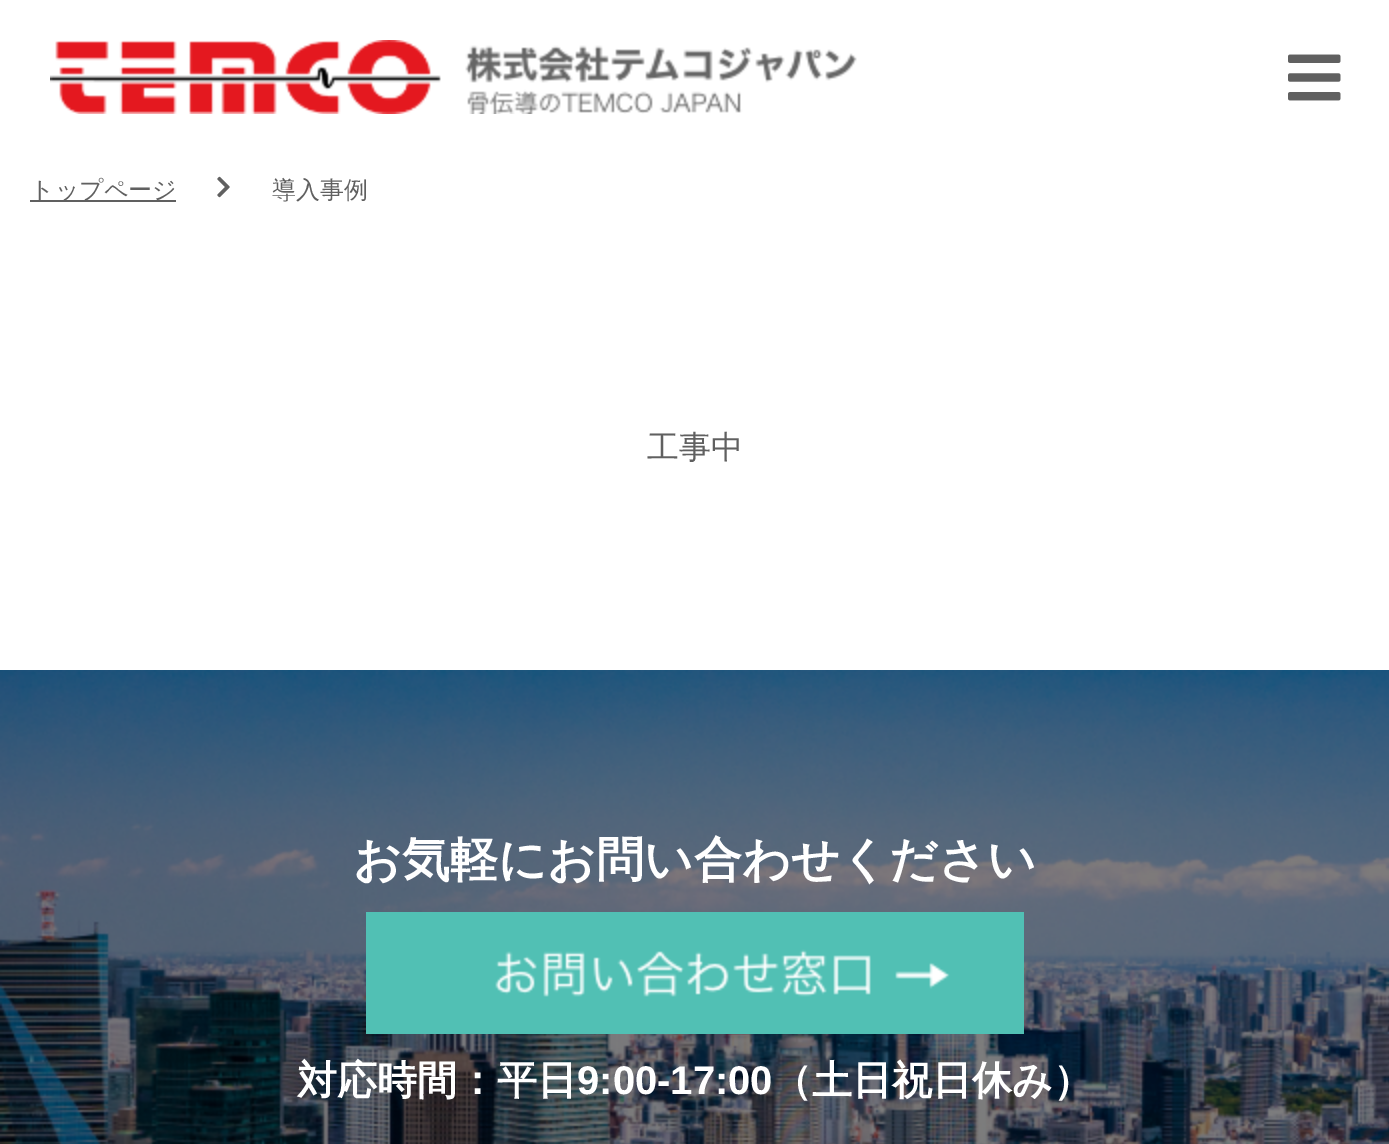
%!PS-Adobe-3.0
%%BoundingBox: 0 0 1389 1144
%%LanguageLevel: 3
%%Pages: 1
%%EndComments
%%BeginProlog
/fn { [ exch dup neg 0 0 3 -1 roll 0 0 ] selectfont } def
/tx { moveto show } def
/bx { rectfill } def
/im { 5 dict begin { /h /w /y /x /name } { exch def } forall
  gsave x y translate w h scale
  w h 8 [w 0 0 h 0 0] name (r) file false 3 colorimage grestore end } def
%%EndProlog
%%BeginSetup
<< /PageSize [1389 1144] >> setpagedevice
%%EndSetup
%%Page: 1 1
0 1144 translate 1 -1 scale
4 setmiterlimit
1 setgray
0 0 1389 1144 bx
(image0.raw) 50 40 807 74 im
(image1.raw) 1288 54 53 47 im
0.376 setgray
30 200 146 2 bx
/WenQuanYiZenHei-Medium 24 fn
(トップページ) 30 198 tx
(image2.raw) 217 176 13 22 im
(導入事例) 272 198 tx
/WenQuanYiZenHei-Medium 32 fn
(工事中) 647 458 tx
(image3.raw) 0 670 1389 474 im
/WenQuanYiZenHei-Bold 48 fn
1 setgray
(お気軽にお問い合わせください) 353 876 tx
(image4.raw) 366 912 658 122 im
/WenQuanYiZenHei-Bold 40 fn
(対応時間：平日) 297 1094 tx
/LiberationSans-Bold 40 fn
(9:00-17:00) 577 1094 tx
/WenQuanYiZenHei-Bold 40 fn
(（土日祝日休み）) 772 1094 tx
showpage
%%EOF
